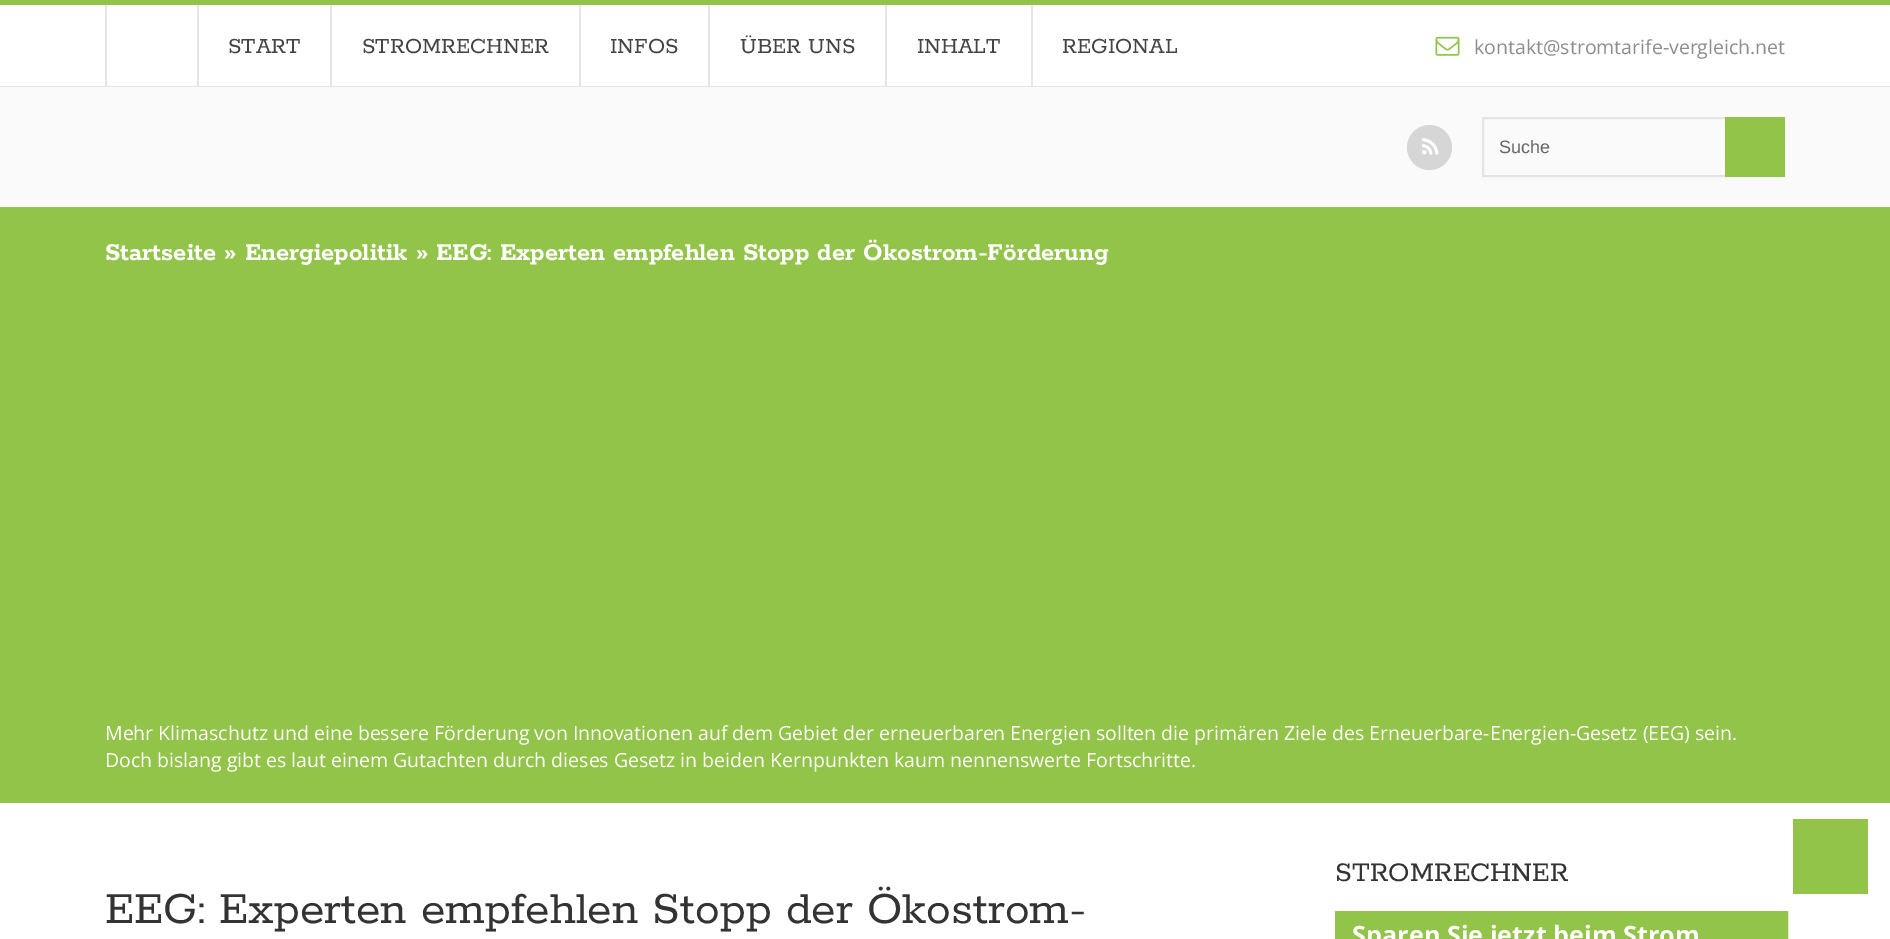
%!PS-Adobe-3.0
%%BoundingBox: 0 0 1890 939
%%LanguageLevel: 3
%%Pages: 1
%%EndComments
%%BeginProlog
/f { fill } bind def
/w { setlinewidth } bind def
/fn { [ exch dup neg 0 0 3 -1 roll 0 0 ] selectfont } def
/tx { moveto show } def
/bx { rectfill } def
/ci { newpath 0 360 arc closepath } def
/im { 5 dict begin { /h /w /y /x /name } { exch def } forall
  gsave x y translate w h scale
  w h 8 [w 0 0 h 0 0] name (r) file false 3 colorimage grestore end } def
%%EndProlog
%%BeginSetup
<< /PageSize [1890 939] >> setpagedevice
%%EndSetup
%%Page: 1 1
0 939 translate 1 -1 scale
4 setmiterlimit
1 setgray
0 0 1890 939 bx
0.569 0.769 0.282 setrgbcolor
0 0 1890 5 bx
0.898 setgray
0 86 1890 1 bx
105 5 2 81 bx
197 5 2 81 bx
/Rokkitt-Regular 24 fn
0.267 setgray
(START) 228 53 tx
0.898 setgray
330 5 2 81 bx
0.267 setgray
(STROMRECHNER) 362 53 tx
0.898 setgray
579 5 2 81 bx
0.267 setgray
(INFOS) 610 53 tx
0.898 setgray
708 5 2 81 bx
0.267 setgray
(ÜBER UNS) 740 53 tx
0.898 setgray
885 5 2 81 bx
0.267 setgray
(INHALT) 917 53 tx
0.898 setgray
1031 5 2 81 bx
0.267 setgray
(REGIONAL) 1062 53 tx
(image0.raw) 1435 36 25 20 im
/OpenSans-Regular 19.5 fn
0.553 setgray
(kontakt@stromtarife-vergleich.net) 1474 54 tx
0.98 setgray
0 87 1890 120 bx
0.839 setgray
1429.5 147.5 22.5 ci f
(image1.raw) 1422 138 17 17 im
0.894 setgray
2 w
1483 118 301 58 rectstroke
/LiberationSans-Regular 18 fn
0.4 setgray
(Suche) 1499 153 tx
0.569 0.769 0.282 setrgbcolor
1725 117 60 60 bx
0 207 1890 596 bx
/Rokkitt-Bold 27 fn
1 setgray
(Startseite » Energiepolitik » EEG: Experten empfehlen Stopp der Ökostrom-Förderung) 105 260 tx
/OpenSans-Regular 19.5 fn
(Mehr Klimaschutz und eine bessere Förderung von Innovationen auf dem Gebiet der erneuerbaren Energien sollten die primären Ziele des Erneuerbare-Energien-Gesetz \(EEG\) sein.) 105 740 tx
(Doch bislang gibt es laut einem Gutachten durch dieses Gesetz in beiden Kernpunkten kaum nennenswerte Fortschritte.) 105 767 tx
/Rokkitt-Regular 49.5 fn
0.2 setgray
(EEG: Experten empfehlen Stopp der Ökostrom-) 105 923 tx
/Rokkitt-Regular 30 fn
(STROMRECHNER) 1335 881 tx
0.569 0.769 0.282 setrgbcolor
1336 912 451 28 rectstroke
1337 913 449 26 bx
/OpenSans-Bold 25.25 fn
1 setgray
(Sparen Sie jetzt beim Strom) 1352 944 tx
0.569 0.769 0.282 setrgbcolor
1793 819 75 75 bx
showpage
%%EOF
